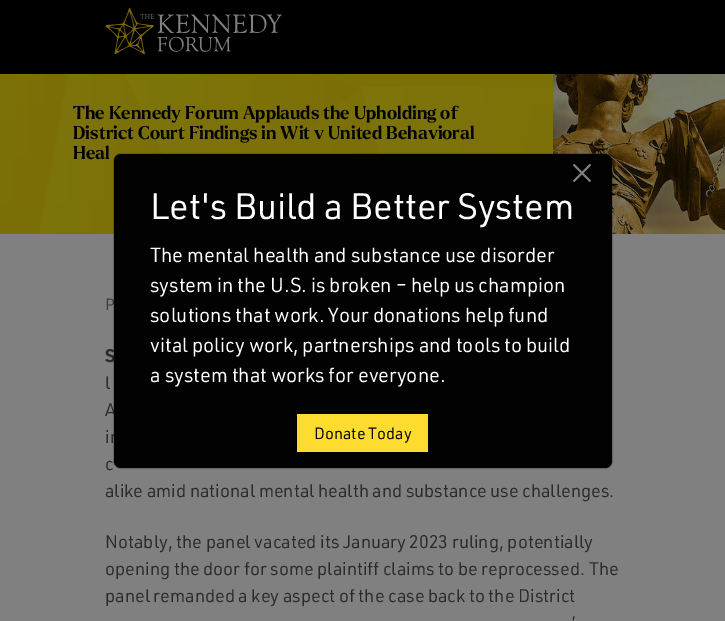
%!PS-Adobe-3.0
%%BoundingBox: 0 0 725 621
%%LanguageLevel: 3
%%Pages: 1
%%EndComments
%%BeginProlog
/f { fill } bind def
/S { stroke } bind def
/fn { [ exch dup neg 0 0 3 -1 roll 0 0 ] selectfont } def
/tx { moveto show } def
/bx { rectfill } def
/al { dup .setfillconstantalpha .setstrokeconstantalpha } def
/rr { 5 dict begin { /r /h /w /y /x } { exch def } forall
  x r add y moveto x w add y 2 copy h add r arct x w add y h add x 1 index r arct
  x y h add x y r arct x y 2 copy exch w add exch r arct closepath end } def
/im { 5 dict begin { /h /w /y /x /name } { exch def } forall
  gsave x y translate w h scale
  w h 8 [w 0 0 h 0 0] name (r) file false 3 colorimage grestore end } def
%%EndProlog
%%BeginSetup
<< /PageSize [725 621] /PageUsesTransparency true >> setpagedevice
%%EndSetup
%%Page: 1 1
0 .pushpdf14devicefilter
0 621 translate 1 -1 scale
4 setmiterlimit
0.502 setgray
0 0 725 621 bx
0 setgray
0 0 725 74 bx
(image0.raw) 105 8 177 46 im
(image1.raw) 0 74 553 160 im
/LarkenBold-Bold 18 fn
0.004 setgray
(The Kennedy Forum Applauds the Upholding of) 73 119 tx
(District Court Findings in Wit v United Behavioral) 73 139 tx
(Heal) 73 159 tx
(image2.raw) 553 74 172 160 im
/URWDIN-Regular 16 fn
0.212 0.231 0.247 setrgbcolor
(P) 105 310 tx
/URWDIN-Bold 18 fn
0.169 setgray
(S) 105 362 tx
/URWDIN-Regular 18 fn
(l) 105 389 tx
(A) 105 416 tx
(in) 105 443 tx
(c) 105 470 tx
(alike amid national mental health and substance use challenges.) 105 497 tx
(Notably, the panel vacated its January 2023 ruling, potentially) 105 548 tx
(opening the door for some plaintiff claims to be reprocessed. The) 105 575 tx
(panel remanded a key aspect of the case back to the District) 105 602 tx
(’) 572 629 tx
0.008 setgray
114 154 498 314 7 rr f
0.18 al
0 setgray
113.5 153.5 499 315 7.5 rr S
1 al
(image3.raw) 573 164 18 18 im
/URWDIN-Regular 36 fn
1 setgray
(Let's Build a Better System) 150 219 tx
/URWDIN-Regular 20 fn
(The mental health and substance use disorder) 150 262 tx
(system in the U.S. is broken – help us champion) 150 292 tx
(solutions that work. Your donations help fund) 150 322 tx
(vital policy work, partnerships and tools to build) 150 352 tx
(a system that works for everyone.) 150 382 tx
0.992 0.863 0.184 setrgbcolor
297 414 131 38 bx
/URWDIN-Regular 16 fn
0.004 setgray
(Donate Today) 314 439 tx
.poppdf14devicefilter showpage
%%EOF
